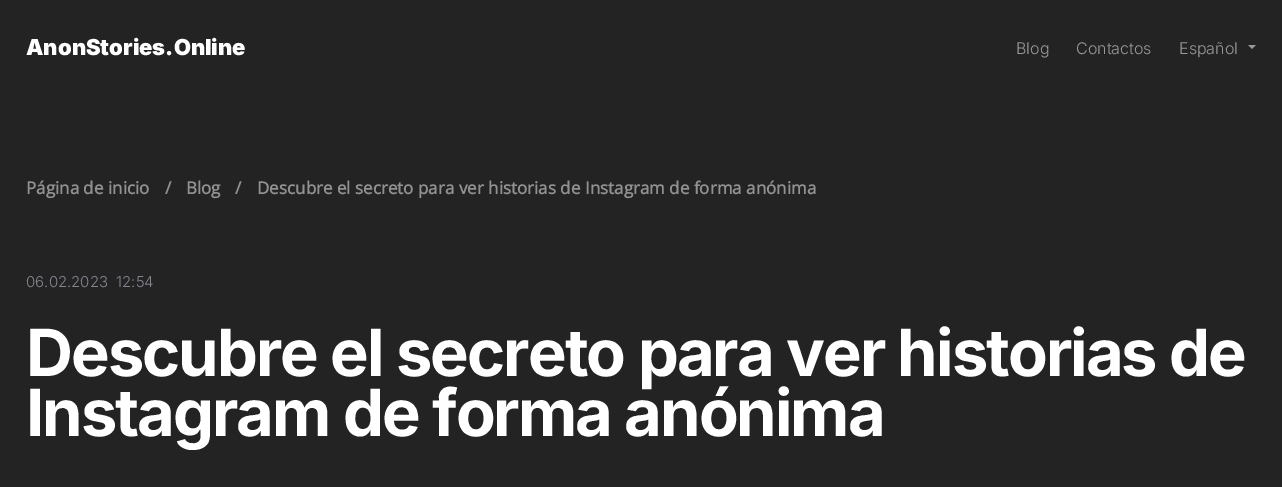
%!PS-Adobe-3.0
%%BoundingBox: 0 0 1282 487
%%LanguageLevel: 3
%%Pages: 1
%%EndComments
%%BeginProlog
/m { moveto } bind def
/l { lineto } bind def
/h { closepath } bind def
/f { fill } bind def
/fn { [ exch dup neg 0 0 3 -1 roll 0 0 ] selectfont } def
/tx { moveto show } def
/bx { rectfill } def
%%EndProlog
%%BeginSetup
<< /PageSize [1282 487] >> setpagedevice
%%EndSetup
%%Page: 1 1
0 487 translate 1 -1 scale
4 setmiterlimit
0.137 setgray
0 0 1282 487 bx
/Inter-Black 22 fn
1 setgray
(AnonStories.Online) 26 55 tx
/Inter-Light 16 fn
0.596 setgray
(Blog) 1016 54 tx
(Contactos) 1076 54 tx
(Español) 1179 54 tx
1248 45 m 1256 45 l 1252 49 l h f
/OpenSans-Bold 17 fn
0.569 setgray
(Página de inicio) 26 194 tx
(/) 165 194 tx
(Blog) 186 194 tx
(/) 235 194 tx
(Descubre el secreto para ver historias de Instagram de forma anónima) 257 194 tx
/Inter-Light 15 fn
0.518 0.522 0.569 setrgbcolor
26 287 m 4 0 32 (06.02.2023 12:54) widthshow
/Inter-Bold 65 fn
1 setgray
26 376 m -2 0 (Descubre el secreto para ver historias de) ashow
26 436 m -2 0 (Instagram de forma anónima) ashow
showpage
%%EOF
